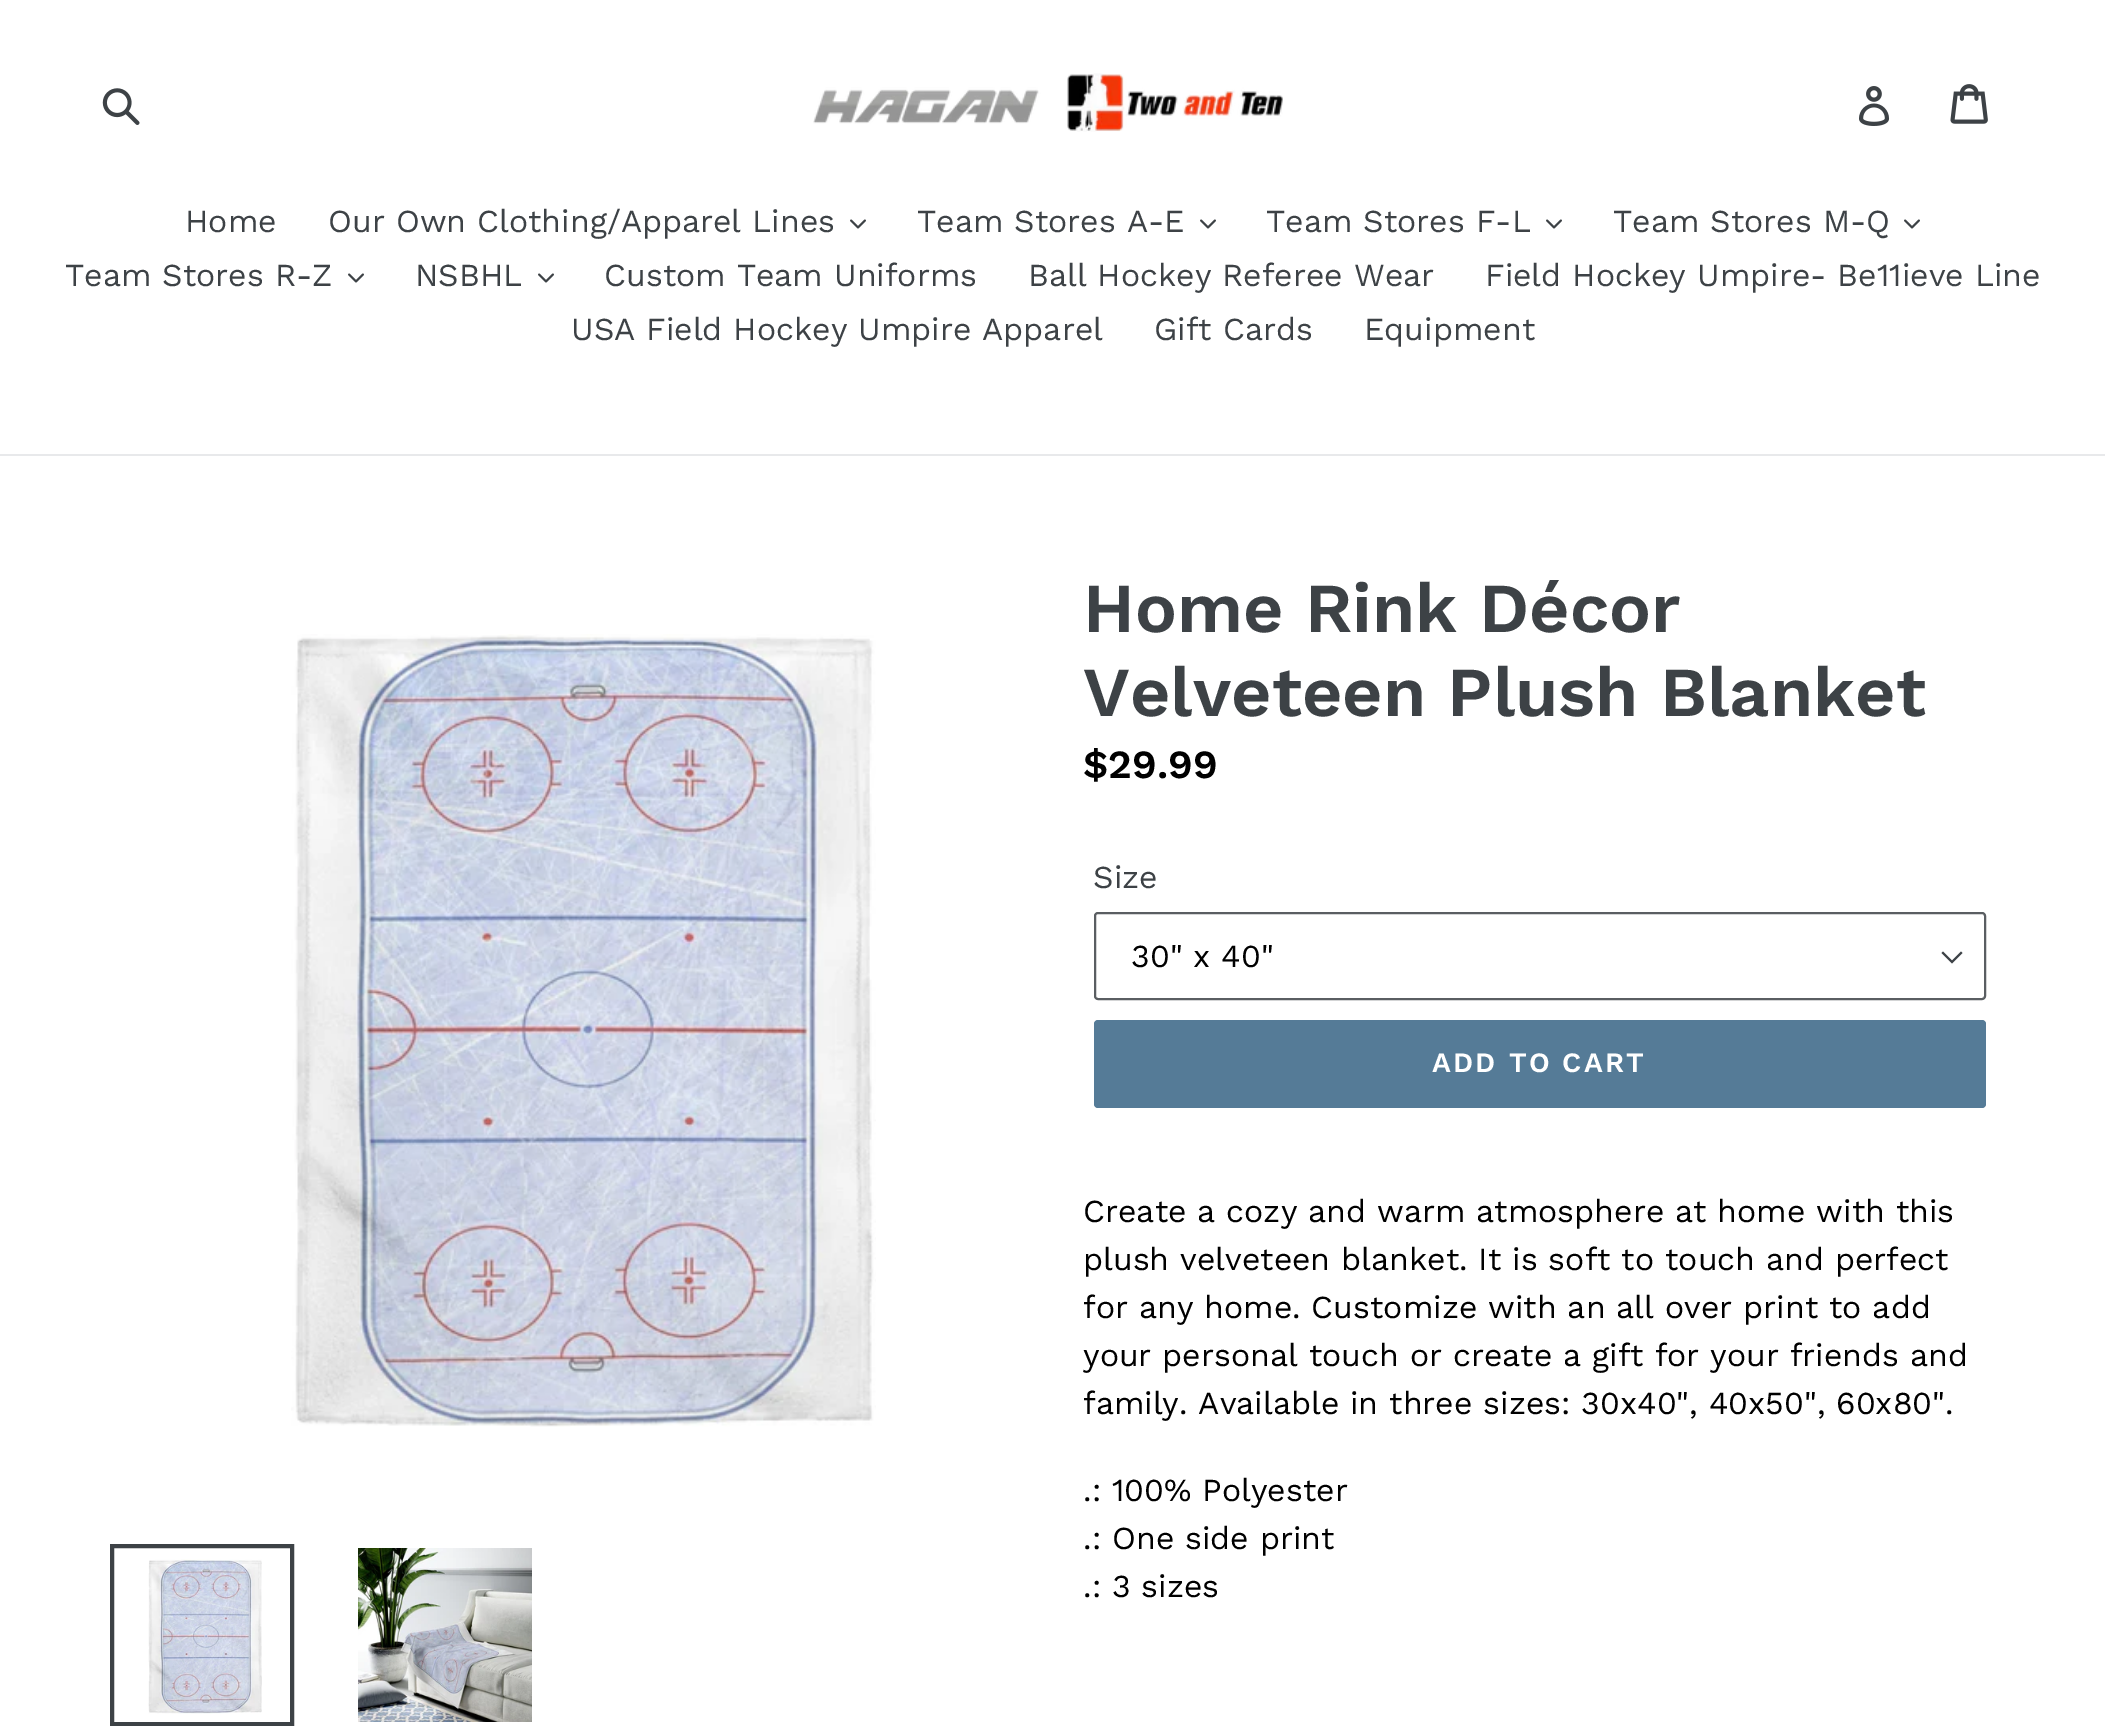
%!PS-Adobe-3.0
%%BoundingBox: 0 0 2105 1726
%%LanguageLevel: 3
%%Pages: 1
%%EndComments
%%BeginProlog
/m { moveto } bind def
/l { lineto } bind def
/h { closepath } bind def
/f { fill } bind def
/S { stroke } bind def
/w { setlinewidth } bind def
/fn { [ exch dup neg 0 0 3 -1 roll 0 0 ] selectfont } def
/tx { moveto show } def
/bx { rectfill } def
/rr { 5 dict begin { /r /h /w /y /x } { exch def } forall
  x r add y moveto x w add y 2 copy h add r arct x w add y h add x 1 index r arct
  x y h add x y r arct x y 2 copy exch w add exch r arct closepath end } def
/im { 5 dict begin { /h /w /y /x /name } { exch def } forall
  gsave x y translate w h scale
  w h 8 [w 0 0 h 0 0] name (r) file false 3 colorimage grestore end } def
%%EndProlog
%%BeginSetup
<< /PageSize [2105 1726] >> setpagedevice
%%EndSetup
%%Page: 1 1
0 1726 translate 1 -1 scale
4 setmiterlimit
1 setgray
0 0 2105 1726 bx
(image0.raw) 102 88 38 37 im
(image1.raw) 813 73 470 59 im
(image2.raw) 1859 86 31 40 im
(image3.raw) 1950 84 38 40 im
0.91 0.914 0.922 setrgbcolor
0 454 2105 2 bx
/WorkSans-Regular 32 fn
0.239 0.259 0.275 setrgbcolor
(Home) 185 232 tx
(Our Own Clothing/Apparel Lines) 328 232 tx
(image4.raw) 850 219 16 10 im
(Team Stores A-E) 917 232 tx
(image4.raw) 1200 219 16 10 im
(Team Stores F-L) 1266 232 tx
(image4.raw) 1546 219 16 10 im
(Team Stores M-Q) 1613 232 tx
(image4.raw) 1904 219 16 10 im
(Team Stores R-Z) 65 286 tx
(image4.raw) 348 273 16 10 im
(NSBHL) 415 286 tx
(image4.raw) 538 273 16 10 im
(Custom Team Uniforms) 604 286 tx
(Ball Hockey Referee Wear) 1028 286 tx
(Field Hockey Umpire- Be11ieve Line) 1485 286 tx
(USA Field Hockey Umpire Apparel) 571 340 tx
(Gift Cards) 1154 340 tx
(Equipment) 1364 340 tx
(image5.raw) 291 634 585 793 im
4 w
112 1546 180 178 rectstroke
(image6.raw) 148 1559 114 155 im
(image7.raw) 358 1548 174 174 im
/WorkSans-SemiBold 70 fn
(Home Rink Décor) 1083 632 tx
(Velveteen Plush Blanket) 1083 716 tx
/WorkSans-SemiBold 40 fn
0 setgray
($29.99) 1083 778 tx
/WorkSans-Regular 32 fn
0.239 0.259 0.275 setrgbcolor
(Size) 1093 888 tx
1952 963.5 m 1941.5 953 l 1943 951.5 l 1952 960.5 l 1961 951.5 l 1962.5 953 l h f
0.353 0.369 0.384 setrgbcolor
2 w
1095 913 890 86 3 rr S
0 setgray
(30" x 40") 1131 967 tx
0.333 0.482 0.592 setrgbcolor
1094 1020 892 88 4 rr f
/WorkSans-SemiBold 28 fn
1 setgray
1432 1072 m 2.25 0 (ADD TO CART) ashow
/WorkSans-Regular 32 fn
0 setgray
(Create a cozy and warm atmosphere at home with this) 1083 1222 tx
(plush velveteen blanket. It is soft to touch and perfect) 1083 1270 tx
(for any home. Customize with an all over print to add) 1083 1318 tx
(your personal touch or create a gift for your friends and) 1083 1366 tx
(family. Available in three sizes: 30x40", 40x50", 60x80".) 1083 1414 tx
(.: 100% Polyester) 1083 1501 tx
(.: One side print) 1083 1549 tx
(.: 3 sizes) 1083 1597 tx
showpage
%%EOF
